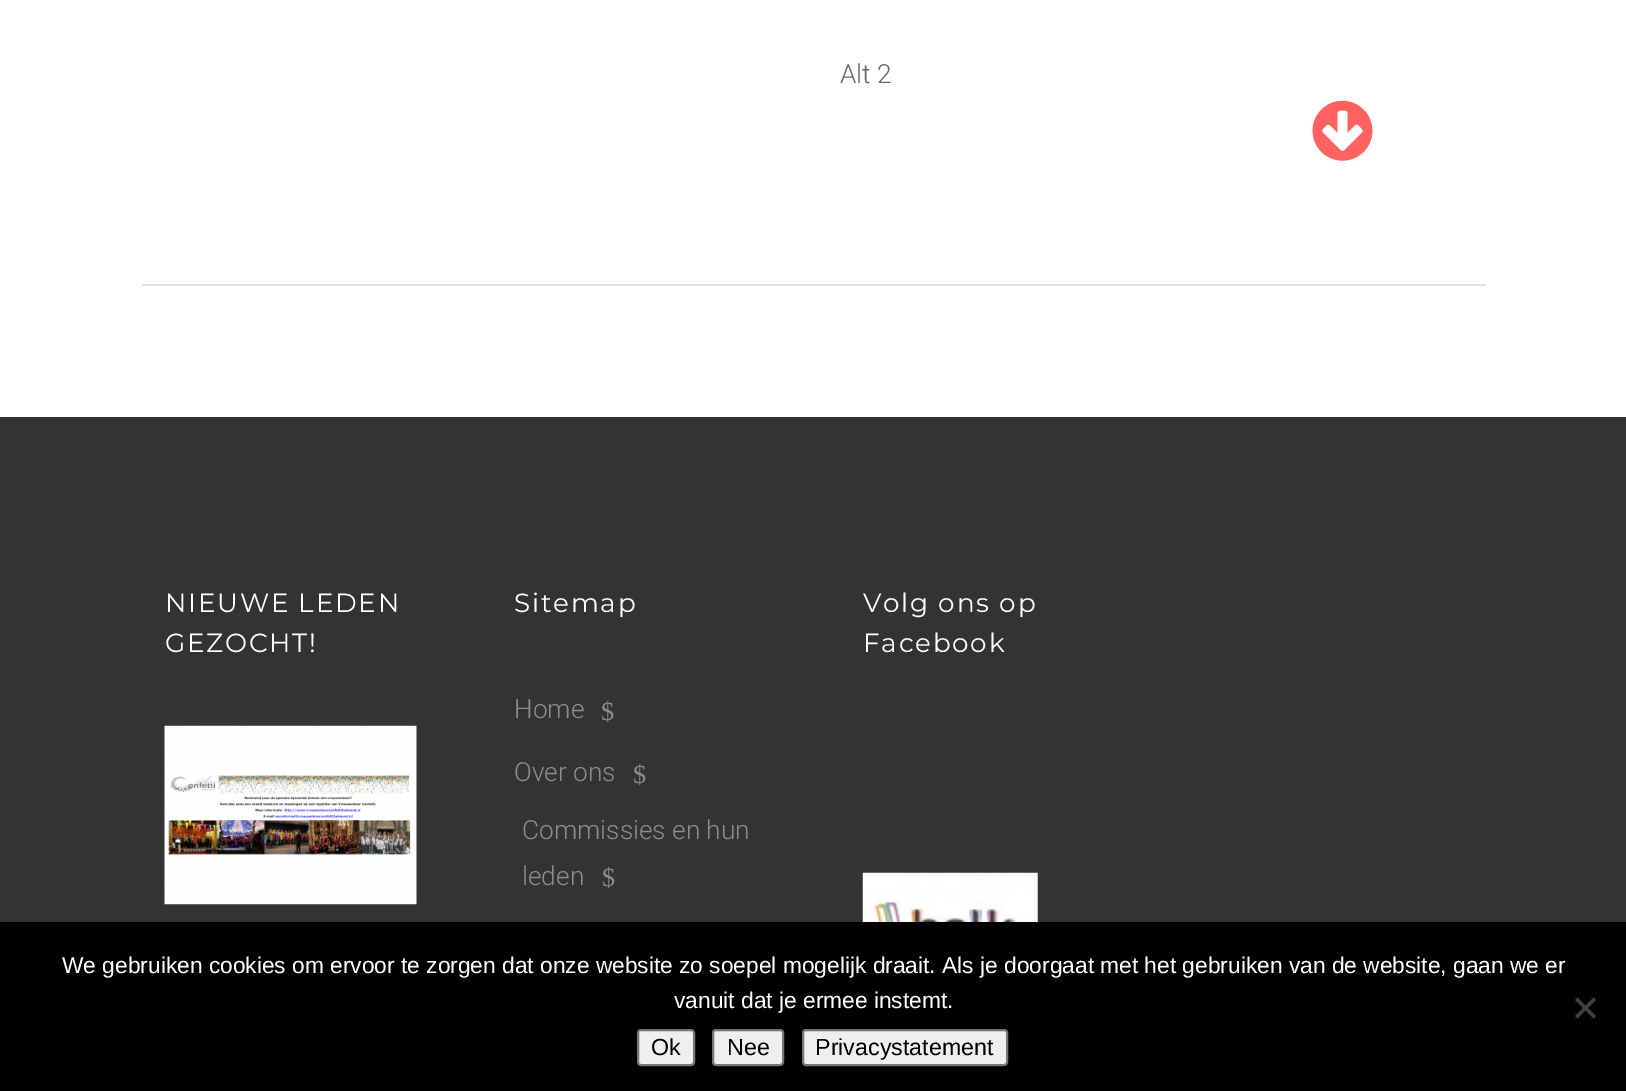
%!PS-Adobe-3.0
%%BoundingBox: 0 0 1626 1091
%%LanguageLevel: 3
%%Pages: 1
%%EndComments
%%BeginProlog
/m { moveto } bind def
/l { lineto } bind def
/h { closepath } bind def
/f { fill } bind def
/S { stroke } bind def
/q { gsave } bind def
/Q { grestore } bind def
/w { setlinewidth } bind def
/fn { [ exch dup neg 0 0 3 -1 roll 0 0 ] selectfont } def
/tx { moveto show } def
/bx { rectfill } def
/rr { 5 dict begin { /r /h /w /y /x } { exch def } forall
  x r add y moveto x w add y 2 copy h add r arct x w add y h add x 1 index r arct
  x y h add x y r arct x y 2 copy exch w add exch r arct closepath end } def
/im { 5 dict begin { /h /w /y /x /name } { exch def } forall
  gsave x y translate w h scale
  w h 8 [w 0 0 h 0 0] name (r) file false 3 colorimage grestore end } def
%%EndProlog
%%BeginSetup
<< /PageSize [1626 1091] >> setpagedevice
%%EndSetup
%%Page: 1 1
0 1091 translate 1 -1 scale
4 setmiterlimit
1 setgray
0 0 1626 1091 bx
0.882 setgray
142 284 1344 2 bx
/Roboto-Light 26.25 fn
0.4 setgray
(Alt 2) 840 83 tx
(image0.raw) 1312 100 61 61 im
0.2 setgray
0 417 1626 505 bx
/Montserrat-Regular 26.25 fn
1 setgray
165 612 m 1.75 0 (NIEUWE LEDEN) ashow
165 652 m 1.75 0 (GEZOCHT!) ashow
(image1.raw) 164 725 253 180 im
514 612 m 1.75 0 (Sitemap) ashow
/Roboto-Light 26.25 fn
0.553 setgray
(Home) 514 718 tx
/LiberationSerif-Regular 26.25 fn
($) 601 720 tx
/Roboto-Light 26.25 fn
(Over ons) 514 781 tx
/LiberationSerif-Regular 26.25 fn
($) 633 783 tx
/Roboto-Light 26.25 fn
(Commissies en hun) 522 839 tx
(leden) 522 885 tx
/LiberationSerif-Regular 26.25 fn
($) 602 886 tx
/Montserrat-Regular 26.25 fn
1 setgray
863 612 m 1.75 0 (Volg ons op) ashow
863 652 m 1.75 0 (Facebook) ashow
(image2.raw) 862 872 176 50 im
0 setgray
0 922 1626 169 bx
/LiberationSans-Regular 22.75 fn
1 setgray
(We gebruiken cookies om ervoor te zorgen dat onze website zo soepel mogelijk draait. Als je doorgaat met het gebruiken van de website, gaan we er) 62 973 tx
(vanuit dat je ermee instemt.) 674 1008 tx
0.251 setgray
1593.5 997.5 m 1596 1000 l 1577.5 1018.5 l 1575 1016 l h f
1575 1000 m 1577.5 997.5 l 1596 1016 l 1593.5 1018.5 l h f
0.937 setgray
638 1030 56 35 3 rr q f Q
0.463 setgray
2 w
S
/LiberationSans-Regular 23.25 fn
0 setgray
(Ok) 651 1055 tx
0.937 setgray
713 1030 70 35 3 rr q f Q
0.463 setgray
S
0 setgray
(Nee) 727 1055 tx
0.937 setgray
803 1030 204 35 3 rr q f Q
0.463 setgray
S
0 setgray
(Privacystatement) 815 1055 tx
showpage
%%EOF
